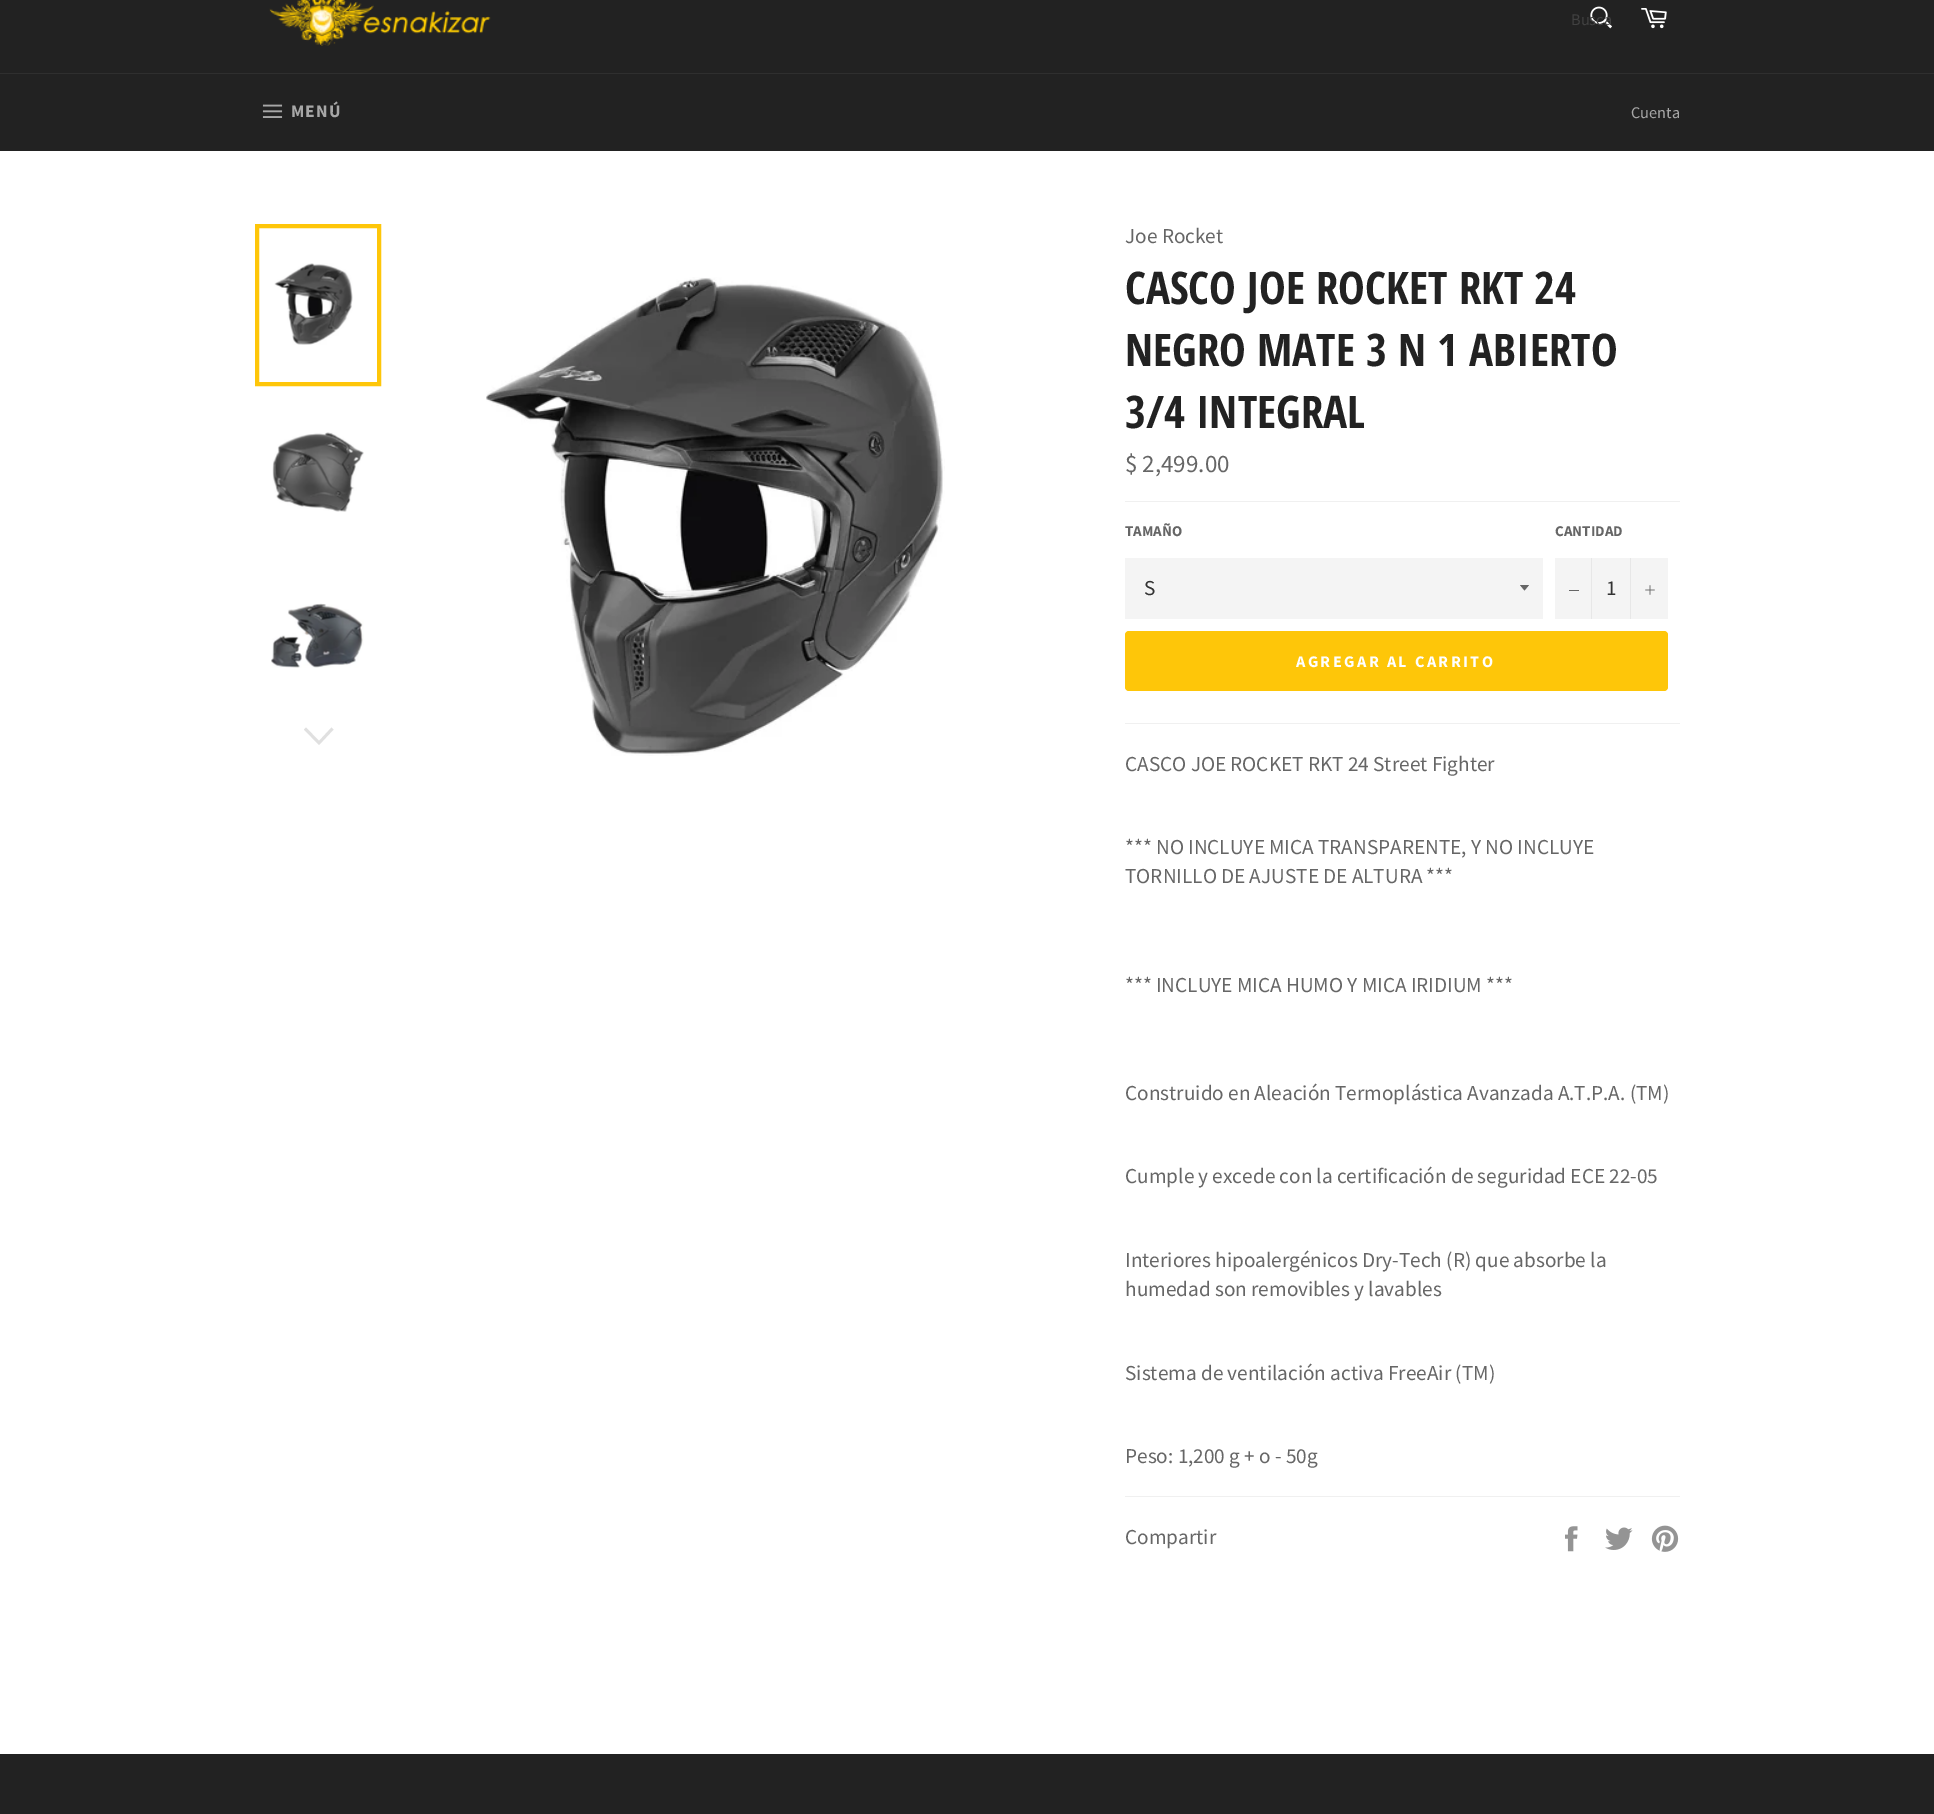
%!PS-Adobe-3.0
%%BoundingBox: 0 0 1934 1814
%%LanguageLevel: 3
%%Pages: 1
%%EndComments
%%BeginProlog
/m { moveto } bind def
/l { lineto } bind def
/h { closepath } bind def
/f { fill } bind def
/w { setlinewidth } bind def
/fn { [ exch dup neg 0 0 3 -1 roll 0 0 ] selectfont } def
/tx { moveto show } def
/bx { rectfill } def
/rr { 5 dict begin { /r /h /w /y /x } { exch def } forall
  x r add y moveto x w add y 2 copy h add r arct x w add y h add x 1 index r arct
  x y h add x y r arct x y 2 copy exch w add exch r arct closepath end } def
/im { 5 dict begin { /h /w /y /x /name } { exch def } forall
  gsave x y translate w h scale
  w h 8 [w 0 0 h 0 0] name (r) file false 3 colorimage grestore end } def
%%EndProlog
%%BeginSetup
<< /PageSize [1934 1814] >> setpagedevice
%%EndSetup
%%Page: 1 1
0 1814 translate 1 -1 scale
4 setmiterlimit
0.133 setgray
0 0 1934 1814 bx
(image0.raw) 269 0 222 46 im
(image1.raw) 1590 6 22 23 im
/SourceSansPro-Regular 16.25 fn
0.255 setgray
(Busca) 1571 25 tx
(image2.raw) 1641 8 26 21 im
0.184 setgray
0 73 1934 1 bx
(image3.raw) 262 104 21 14 im
/SourceSansPro-Bold 17.5 fn
0.655 setgray
291 117 m 1 0 (MENÚ) ashow
/SourceSansPro-Regular 16.25 fn
(Cuenta) 1631 118 tx
1 setgray
0 151 1934 1603 bx
(image4.raw) 274 263 79 82 im
0.996 0.776 0.035 setrgbcolor
4 w
257 226 122 158 rectstroke
(image5.raw) 272 432 92 80 im
(image6.raw) 271 603 93 65 im
0.878 setgray
331.5 727.5 m 333.5 729.5 l 319 745 l 304 729.5 l 306 727.5 l 319 741 l h f
(image7.raw) 486 277 459 479 im
/SourceSansPro-Regular 21.25 fn
0.4 setgray
(Joe Rocket) 1125 243 tx
/OpenSansCondensed-Bold 45 fn
0.133 setgray
(CASCO JOE ROCKET RKT 24) 1125 304 tx
(NEGRO MATE 3 N 1 ABIERTO) 1125 366 tx
(3/4 INTEGRAL) 1125 428 tx
/SourceSansPro-Regular 25 fn
0.4 setgray
($ 2,499.00) 1125 472 tx
0.941 setgray
1125 501 555 1 bx
/SourceSansPro-Bold 15 fn
0.4 setgray
(TAMAÑO) 1125 536 tx
0.957 setgray
1125 558 418 61 bx
0.4 setgray
1520 585 m 1524.5 590.5 l 1529 585 l h f
/SourceSansPro-Regular 21.25 fn
0.2 setgray
(S) 1144 595 tx
/SourceSansPro-Bold 15 fn
0.4 setgray
(CANTIDAD) 1555 536 tx
0.957 setgray
1555 558 113 61 bx
0.906 setgray
1591 558 1 61 bx
0.4 setgray
1569 590 10 1 bx
/SourceSansPro-Regular 21.25 fn
0.2 setgray
(1) 1606 595 tx
0.906 setgray
1630 558 1 61 bx
(image8.raw) 1645 585 10 10 im
0.996 0.776 0.035 setrgbcolor
1125 631 543 60 4 rr f
/SourceSansPro-Bold 16.25 fn
1 setgray
1296 667 m 2.4 0 (AGREGAR AL CARRITO) ashow
0.941 setgray
1125 723 555 1 bx
/SourceSansPro-Regular 21.25 fn
0.4 setgray
(CASCO JOE ROCKET RKT 24 Street Fighter) 1125 771 tx
(*** NO INCLUYE MICA TRANSPARENTE, Y NO INCLUYE) 1125 854 tx
(TORNILLO DE AJUSTE DE ALTURA ***) 1125 883 tx
(*** INCLUYE MICA HUMO Y MICA IRIDIUM ***) 1125 992 tx
(Construido en Aleación Termoplástica Avanzada A.T.P.A. \(TM\)) 1125 1100 tx
(Cumple y excede con la certificación de seguridad ECE 22-05) 1125 1183 tx
(Interiores hipoalergénicos Dry-Tech \(R\) que absorbe la) 1125 1267 tx
(humedad son removibles y lavables) 1125 1296 tx
(Sistema de ventilación activa FreeAir \(TM\)) 1125 1380 tx
(Peso: 1,200 g + o - 50g) 1125 1463 tx
0.941 setgray
1125 1496 555 1 bx
0.4 setgray
(Compartir) 1125 1544 tx
(image9.raw) 1565 1526 13 26 im
(image10.raw) 1605 1527 28 23 im
(image11.raw) 1651 1525 28 27 im
showpage
%%EOF
